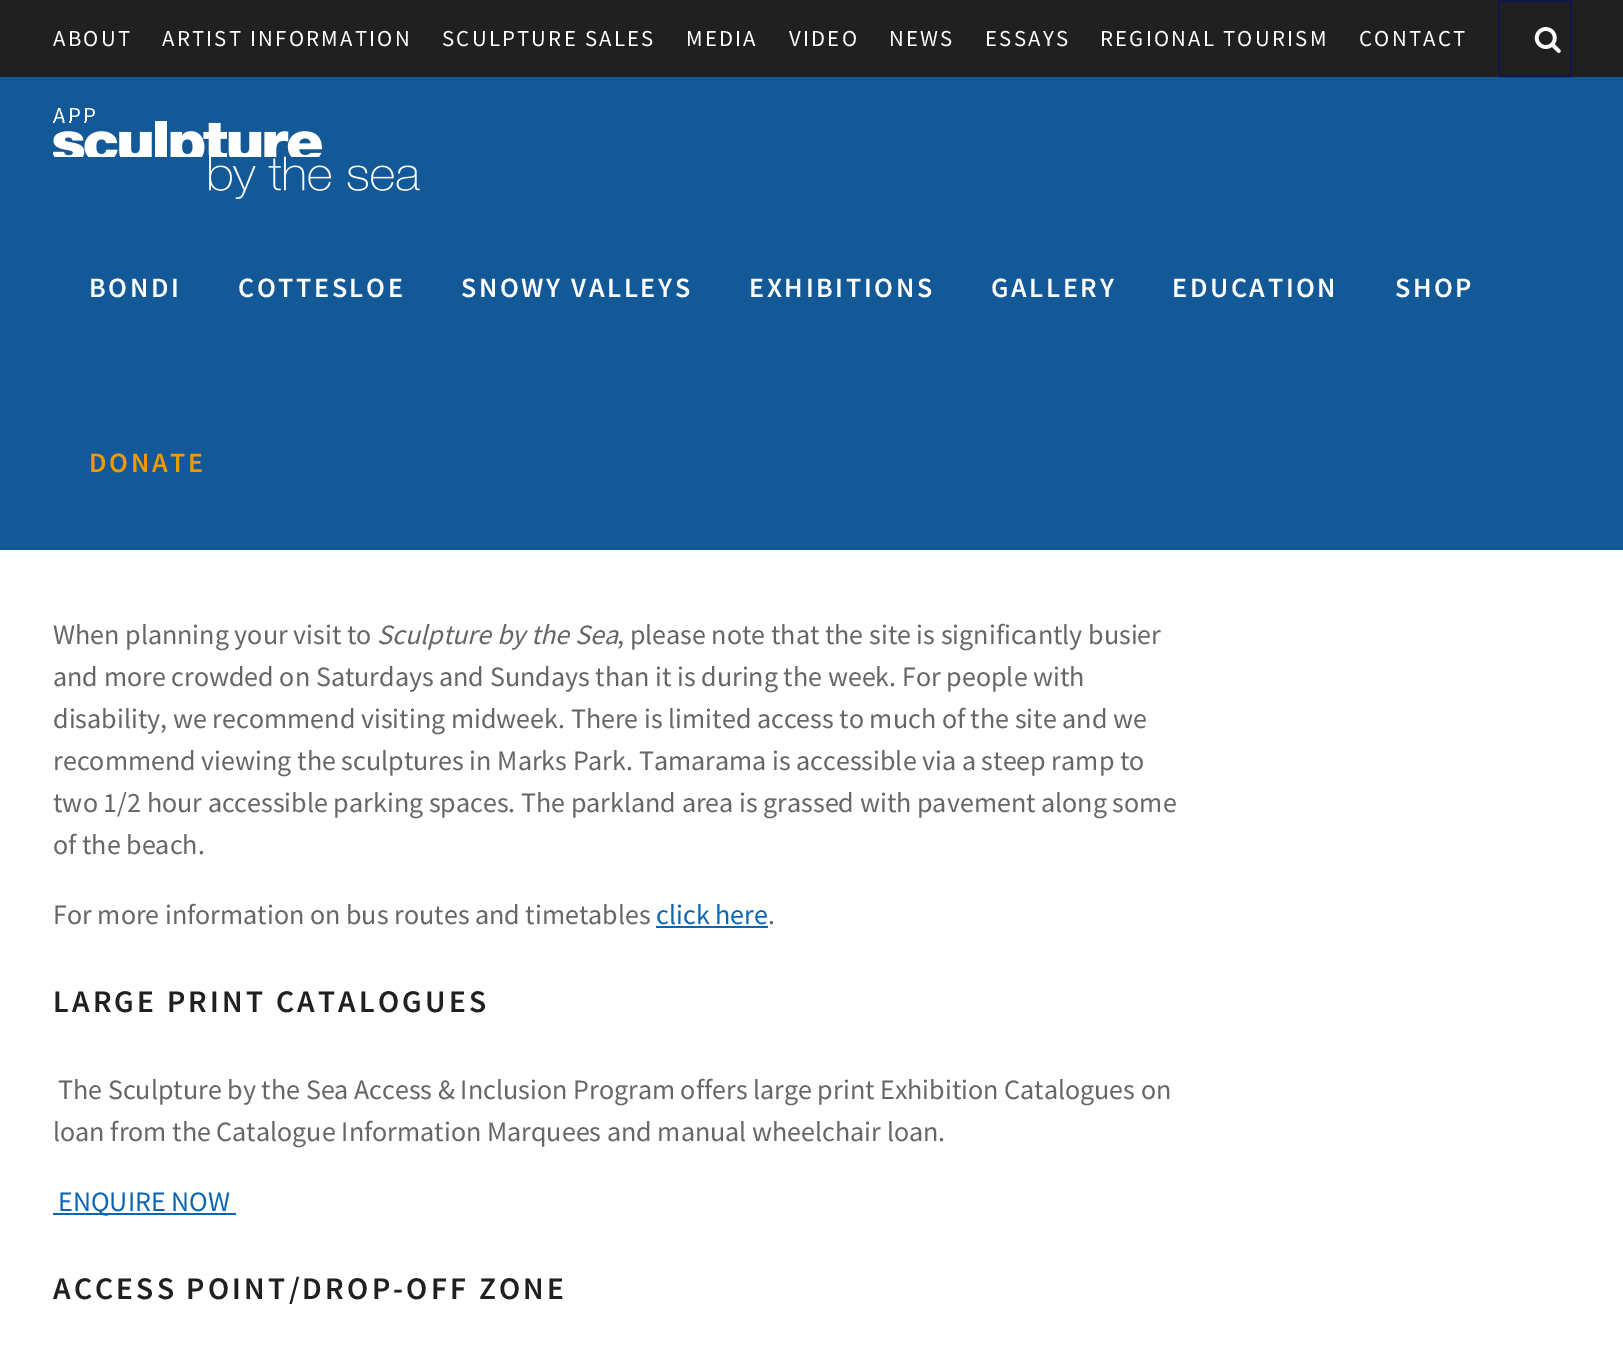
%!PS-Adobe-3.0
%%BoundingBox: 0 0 1623 1348
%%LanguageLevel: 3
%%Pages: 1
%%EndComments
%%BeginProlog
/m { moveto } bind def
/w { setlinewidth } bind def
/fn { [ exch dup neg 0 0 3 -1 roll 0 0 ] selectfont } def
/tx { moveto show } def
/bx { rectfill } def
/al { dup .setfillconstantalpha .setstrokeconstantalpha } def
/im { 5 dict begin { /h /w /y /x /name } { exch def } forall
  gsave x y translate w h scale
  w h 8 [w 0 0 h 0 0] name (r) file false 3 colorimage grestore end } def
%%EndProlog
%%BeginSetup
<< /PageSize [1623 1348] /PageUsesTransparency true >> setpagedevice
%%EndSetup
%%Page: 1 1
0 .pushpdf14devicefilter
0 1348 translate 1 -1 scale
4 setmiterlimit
1 setgray
0 0 1623 1348 bx
0.92 al
0 0.294 0.557 setrgbcolor
0 77 1623 473 bx
1 al
0.125 setgray
0 0 1623 77 bx
/SourceSansPro-Regular 22.75 fn
1 setgray
53 46 m 2.25 0 (ABOUT) ashow
162 46 m 2.25 0 (ARTIST INFORMATION) ashow
442 46 m 2.25 0 (SCULPTURE SALES) ashow
686 46 m 2.25 0 (MEDIA) ashow
789 46 m 2.25 0 (VIDEO) ashow
889 46 m 2.25 0 (NEWS) ashow
985 46 m 2.25 0 (ESSAYS) ashow
1100 46 m 2.25 0 (REGIONAL TOURISM) ashow
1359 46 m 2.25 0 (CONTACT) ashow
53 123 m 2.25 0 (APP) ashow
0.071 0.09 0.294 setrgbcolor
2 w
1499 1 72 75 rectstroke
(image0.raw) 1534 27 27 26 im
(image1.raw) 53 121 367 78 im
/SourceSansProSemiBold-SemiBold 28 fn
1 setgray
89 297 m 2.6 0 (BONDI) ashow
238 297 m 2.6 0 (COTTESLOE) ashow
461 297 m 2.6 0 (SNOWY VALLEYS) ashow
749 297 m 2.6 0 (EXHIBITIONS) ashow
991 297 m 2.6 0 (GALLERY) ashow
1172 297 m 2.6 0 (EDUCATION) ashow
1395 297 m 2.6 0 (SHOP) ashow
0.937 0.604 0 setrgbcolor
89 472 m 2.6 0 (DONATE) ashow
/SourceSansPro-Regular 28 fn
0.4 setgray
(When planning your visit to) 53 644 tx
/SourceSansPro-Italic 28 fn
(Sculpture by the Sea) 377 644 tx
/SourceSansPro-Regular 28 fn
(, please note that the site is significantly busier) 617 644 tx
(and more crowded on Saturdays and Sundays than it is during the week. For people with) 53 686 tx
(disability, we recommend visiting midweek. There is limited access to much of the site and we) 53 728 tx
(recommend viewing the sculptures in Marks Park. Tamarama is accessible via a steep ramp to) 53 770 tx
(two 1/2 hour accessible parking spaces. The parkland area is grassed with pavement along some) 53 812 tx
(of the beach.) 53 854 tx
(For more information on bus routes and timetables) 53 924 tx
0.039 0.396 0.702 setrgbcolor
(click here) 656 924 tx
656 926 112 2 bx
0.4 setgray
(.) 768 924 tx
/SourceSansProSemiBold-SemiBold 31.5 fn
0.125 setgray
53 1012 m 3.15 0 (LARGE PRINT CATALOGUES) ashow
/SourceSansPro-Regular 28 fn
0.4 setgray
(The Sculpture by the Sea Access & Inclusion Program offers large print Exhibition Catalogues on) 58 1099 tx
(loan from the Catalogue Information Marquees and manual wheelchair loan.) 53 1141 tx
0.039 0.396 0.702 setrgbcolor
53 1213 183 2 bx
(ENQUIRE NOW) 58 1211 tx
/SourceSansProSemiBold-SemiBold 31.5 fn
0.125 setgray
53 1299 m 3.15 0 (ACCESS POINT/DROP-OFF ZONE) ashow
.poppdf14devicefilter showpage
%%EOF
